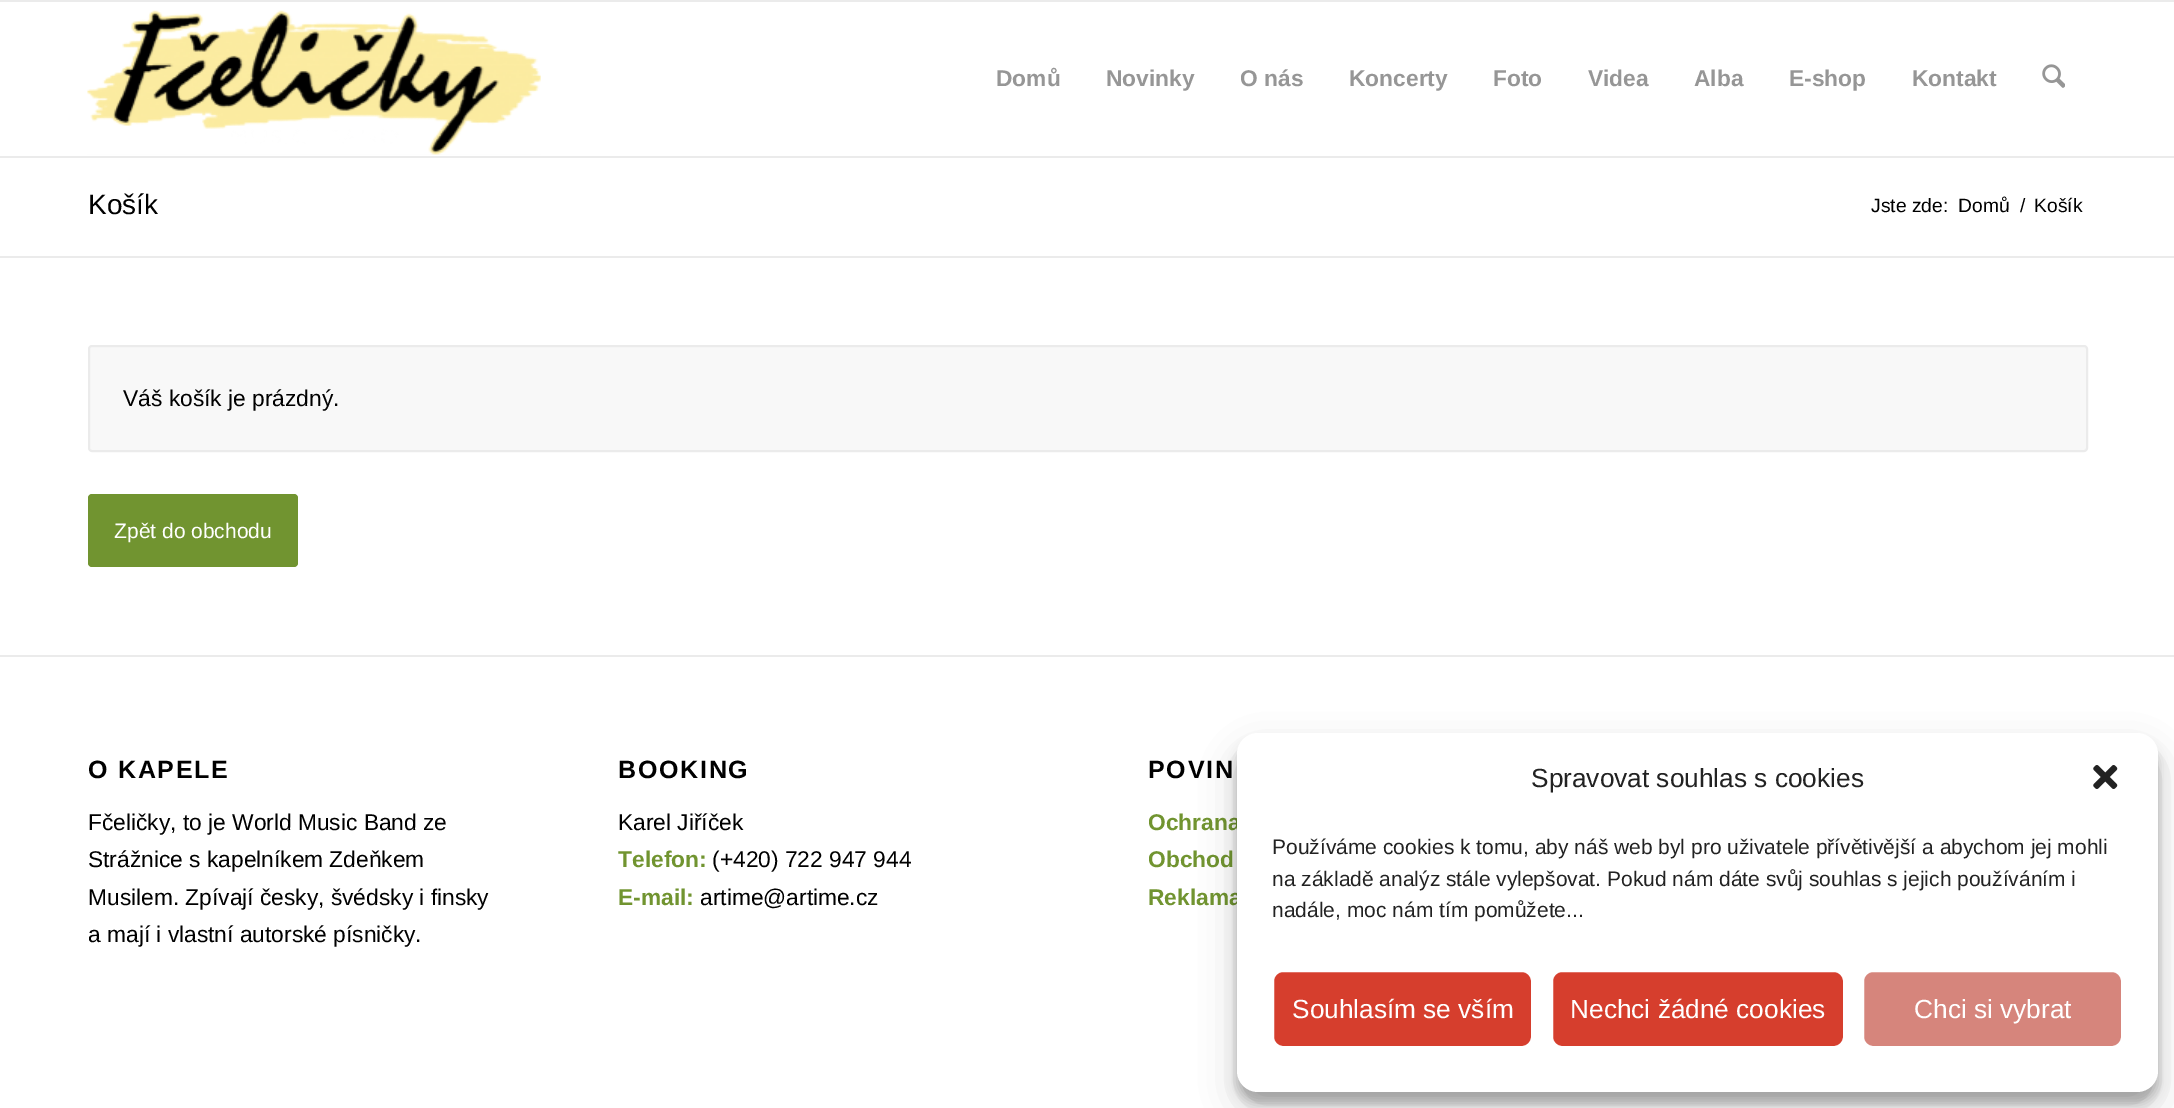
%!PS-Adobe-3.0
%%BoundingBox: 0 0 2174 1108
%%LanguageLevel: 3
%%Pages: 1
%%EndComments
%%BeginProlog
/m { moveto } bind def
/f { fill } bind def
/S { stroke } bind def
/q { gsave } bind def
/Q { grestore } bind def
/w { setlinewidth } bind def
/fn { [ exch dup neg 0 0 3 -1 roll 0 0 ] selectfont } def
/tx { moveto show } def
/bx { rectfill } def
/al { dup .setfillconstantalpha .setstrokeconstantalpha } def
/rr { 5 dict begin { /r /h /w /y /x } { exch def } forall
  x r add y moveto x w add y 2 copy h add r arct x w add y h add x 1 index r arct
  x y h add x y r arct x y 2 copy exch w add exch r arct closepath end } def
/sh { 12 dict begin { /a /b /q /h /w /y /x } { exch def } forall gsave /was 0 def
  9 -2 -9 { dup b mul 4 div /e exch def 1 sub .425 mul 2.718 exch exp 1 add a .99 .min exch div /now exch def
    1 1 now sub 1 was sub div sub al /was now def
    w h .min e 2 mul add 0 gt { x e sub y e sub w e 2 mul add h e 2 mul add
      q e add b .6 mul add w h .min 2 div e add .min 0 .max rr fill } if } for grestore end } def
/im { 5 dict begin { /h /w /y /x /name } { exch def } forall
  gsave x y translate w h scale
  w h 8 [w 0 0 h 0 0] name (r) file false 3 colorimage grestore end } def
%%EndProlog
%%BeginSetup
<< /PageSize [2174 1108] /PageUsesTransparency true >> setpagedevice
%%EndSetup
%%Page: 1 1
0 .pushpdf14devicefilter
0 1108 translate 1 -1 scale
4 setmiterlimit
1 setgray
0 0 2174 1108 bx
0.922 setgray
0 0 2174 2 bx
0 156 2174 2 bx
(image0.raw) 87 10 454 145 im
/LiberationSans-Bold 22.75 fn
0.588 setgray
(Domů) 996 86 tx
(Novinky) 1106 86 tx
(O nás) 1240 86 tx
(Koncerty) 1349 86 tx
(Foto) 1493 86 tx
(Videa) 1588 86 tx
(Alba) 1694 86 tx
(E-shop) 1789 86 tx
(Kontakt) 1912 86 tx
(image1.raw) 2042 64 23 24 im
/LiberationSans-Regular 28 fn
0 setgray
(Košík) 88 214 tx
/LiberationSans-Regular 19.25 fn
(Jste zde:) 1871 212 tx
(Domů) 1958 212 tx
(/) 2020 212 tx
(Košík) 2034 212 tx
0.922 setgray
0 256 2174 2 bx
0.973 setgray
89 346 1998 105 3 rr q f Q
0.922 setgray
2 w
S
/LiberationSans-Regular 22.75 fn
0 setgray
(Váš košík je prázdný.) 123 406 tx
0.443 0.58 0.188 setrgbcolor
88 494 210 73 4 rr f
/LiberationSans-Regular 21 fn
1 setgray
(Zpět do obchodu) 114 538 tx
0.922 setgray
0 655 2174 2 bx
/LiberationSans-Bold 25 fn
0 setgray
88 778 m 1.75 0 (O KAPELE) ashow
/LiberationSans-Regular 22.75 fn
(Fčeličky, to je World Music Band ze) 88 830 tx
(Strážnice s kapelníkem Zdeňkem) 88 867 tx
(Musilem. Zpívají česky, švédsky i finsky) 88 905 tx
(a mají i vlastní autorské písničky.) 88 942 tx
/LiberationSans-Bold 25 fn
618 778 m 1.75 0 (BOOKING) ashow
/LiberationSans-Regular 22.75 fn
(Karel Jiříček) 618 830 tx
q
618 735 409 201 rectclip
/LiberationSans-Bold 22.75 fn
0.443 0.58 0.188 setrgbcolor
(Telefon:) 618 867 tx
Q
(\(+420\) 722 947 944) 712 867 tx
/LiberationSans-Bold 22.75 fn
0.443 0.58 0.188 setrgbcolor
(E-mail:) 618 905 tx
/LiberationSans-Regular 22.75 fn
0 setgray
(artime@artime.cz) 700 905 tx
/LiberationSans-Bold 25 fn
1148 778 m 1.75 0 (POVIN) ashow
/LiberationSans-Bold 22.75 fn
0.443 0.58 0.188 setrgbcolor
(Ochrana) 1148 830 tx
(Obchod) 1148 867 tx
(Reklama) 1148 905 tx
0 setgray
1237 744 921 359 21 5 0.23 sh
1237 751 921 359 21 17.5 0.19 sh
1 setgray
1237 733 921 359 21 rr f
/LiberationSans-Regular 26.25 fn
0.133 setgray
(Spravovat souhlas s cookies) 1531 787 tx
(image2.raw) 2093 765 25 24 im
/LiberationSans-Regular 21 fn
(Používáme cookies k tomu, aby náš web byl pro uživatele přívětivější a abychom jej mohli) 1272 854 tx
(na základě analýz stále vylepšovat. Pokud nám dáte svůj souhlas s jejich používáním i) 1272 886 tx
(nadále, moc nám tím pomůžete...) 1272 917 tx
0.839 0.243 0.176 setrgbcolor
1273 971 259 76 10 rr q f Q
1 setgray
S
/LiberationSans-Regular 26.25 fn
(Souhlasím se vším) 1292 1018 tx
0.839 0.243 0.176 setrgbcolor
1552 971 292 76 10 rr q f Q
1 setgray
S
(Nechci žádné cookies) 1570 1018 tx
0.839 0.522 0.486 setrgbcolor
1863 971 259 76 10 rr q f Q
1 setgray
S
(Chci si vybrat) 1914 1018 tx
.poppdf14devicefilter showpage
%%EOF
